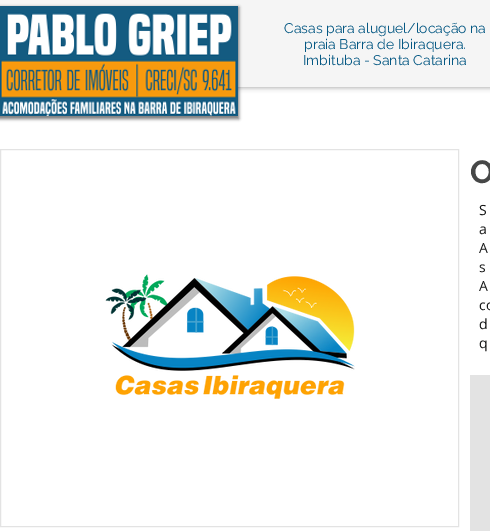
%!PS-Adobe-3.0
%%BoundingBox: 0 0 490 531
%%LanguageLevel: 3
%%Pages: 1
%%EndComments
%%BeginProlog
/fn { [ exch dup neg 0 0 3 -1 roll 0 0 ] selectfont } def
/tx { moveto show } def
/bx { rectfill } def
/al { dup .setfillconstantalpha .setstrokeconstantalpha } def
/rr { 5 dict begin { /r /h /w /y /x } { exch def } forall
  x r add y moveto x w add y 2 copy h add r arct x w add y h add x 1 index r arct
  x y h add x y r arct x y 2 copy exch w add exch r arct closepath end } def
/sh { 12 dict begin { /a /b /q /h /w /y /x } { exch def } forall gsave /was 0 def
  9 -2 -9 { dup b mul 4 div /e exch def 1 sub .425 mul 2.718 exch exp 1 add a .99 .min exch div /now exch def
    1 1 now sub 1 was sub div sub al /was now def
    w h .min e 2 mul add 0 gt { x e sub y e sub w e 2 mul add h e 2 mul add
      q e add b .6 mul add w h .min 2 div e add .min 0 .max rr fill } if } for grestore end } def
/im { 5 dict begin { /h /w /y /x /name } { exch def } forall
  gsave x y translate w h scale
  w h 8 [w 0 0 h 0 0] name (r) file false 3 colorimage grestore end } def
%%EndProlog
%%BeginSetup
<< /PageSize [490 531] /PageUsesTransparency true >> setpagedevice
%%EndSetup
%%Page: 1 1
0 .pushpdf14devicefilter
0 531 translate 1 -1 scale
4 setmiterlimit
1 setgray
0 0 490 531 bx
0 setgray
0 -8 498 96 0 2.5 0.3 sh
0.961 setgray
0 0 490 87 bx
0 setgray
-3 7 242 112 0 1.5 0.5 sh
(image0.raw) 0 6 238 110 im
/Raleway-Regular 14 fn
0.02 0.345 0.514 setrgbcolor
(Casas para aluguel/locação na) 284 33 tx
(praia Barra de Ibiraquera.) 304 49 tx
(Imbituba - Santa Catarina) 303 65 tx
0.89 setgray
0.5 149.5 458 377 rectstroke
(image1.raw) 105 274 250 125 im
/Raleway-Bold 32 fn
0.275 0.278 0.278 setrgbcolor
(O) 470 183 tx
/OpenSans-Regular 14 fn
0.094 0.098 0.098 setrgbcolor
(S) 479 215 tx
(a) 479 234 tx
(A) 479 253 tx
(s) 479 272 tx
(A) 479 291 tx
(co) 479 310 tx
(d) 479 329 tx
(q) 479 348 tx
0.89 setgray
470 375 20 156 bx
.poppdf14devicefilter showpage
%%EOF
